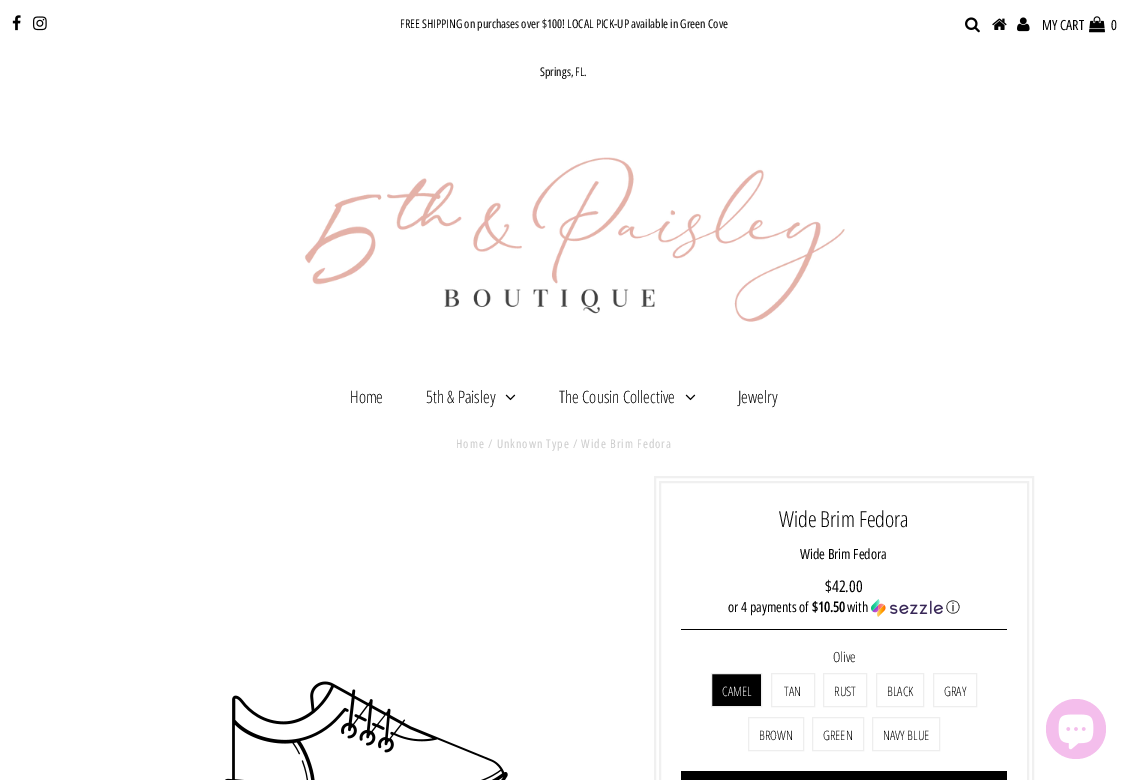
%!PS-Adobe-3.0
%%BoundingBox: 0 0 1128 780
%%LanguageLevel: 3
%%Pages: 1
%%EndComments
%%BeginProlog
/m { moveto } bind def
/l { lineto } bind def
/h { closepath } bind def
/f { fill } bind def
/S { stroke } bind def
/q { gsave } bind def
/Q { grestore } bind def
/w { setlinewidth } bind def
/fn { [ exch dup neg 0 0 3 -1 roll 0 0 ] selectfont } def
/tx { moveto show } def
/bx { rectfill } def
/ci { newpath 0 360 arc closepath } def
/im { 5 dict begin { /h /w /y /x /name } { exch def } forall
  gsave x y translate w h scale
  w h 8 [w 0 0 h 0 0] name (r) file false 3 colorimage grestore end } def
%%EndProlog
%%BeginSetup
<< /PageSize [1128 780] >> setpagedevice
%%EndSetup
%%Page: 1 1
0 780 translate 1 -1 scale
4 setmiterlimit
1 setgray
0 0 1128 780 bx
(image0.raw) 12 15 9 16 im
(image1.raw) 33 16 14 15 im
/OpenSansCondensed-Regular 12 fn
0 setgray
(FREE SHIPPING on purchases over $100! LOCAL PICK-UP available in Green Cove) 400 28 tx
(Springs, FL.) 540 76 tx
(image2.raw) 965 17 15 16 im
(image3.raw) 992 18 15 12 im
(image4.raw) 1017 17 13 15 im
/OpenSansCondensed-Regular 14 fn
(MY CART) 1042 30 tx
(image5.raw) 1089 16 16 17 im
(0) 1111 30 tx
(image6.raw) 304 157 541 165 im
/OpenSansCondensed-Light 17 fn
(Home) 350 403 tx
(5th & Paisley) 426 403 tx
(image7.raw) 505 394 11 7 im
(The Cousin Collective) 559 403 tx
(image7.raw) 685 394 11 7 im
(Jewelry) 738 403 tx
/OpenSansCondensed-Regular 12 fn
0.8 setgray
456 448 m 1 0 (Home / Unknown Type / Wide Brim Fedora) ashow
(image8.raw) 225 681 283 99 im
0.941 setgray
2 w
655 477 378 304 rectstroke
660 482 368 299 rectstroke
/OpenSansCondensed-Light 22 fn
0 setgray
(Wide Brim Fedora) 779 527 tx
/OpenSansCondensed-Regular 14 fn
(Wide Brim Fedora) 800 559 tx
681 629 326 1 bx
/OpenSansCondensed-Regular 16 fn
($42.00) 825 592 tx
/OpenSansCondensed-Regular 14 fn
(or 4 payments of) 728 612 tx
/OpenSansCondensed-Bold 14 fn
($10.50) 812 612 tx
/OpenSansCondensed-Regular 14 fn
(with) 847 612 tx
(image9.raw) 871 599 72 18 im
/WenQuanYiZenHei-Medium 14 fn
(ⓘ) 946 612 tx
/OpenSansCondensed-Light 14 fn
(Olive) 833 662 tx
711.5 673.5 m 761.5 673.5 l 761.5 706.5 l 711.5 706.5 l h q f Q
0.933 setgray
1 w
S
/OpenSansCondensed-Light 13 fn
1 setgray
(CAMEL) 722 696 tx
0.933 setgray
771.5 673.5 43 33 rectstroke
0 setgray
(TAN) 784 696 tx
0.933 setgray
823.5 673.5 43 33 rectstroke
0 setgray
(RUST) 834 696 tx
0.933 setgray
876.5 673.5 47 33 rectstroke
0 setgray
(BLACK) 887 696 tx
0.933 setgray
933.5 673.5 43 33 rectstroke
0 setgray
(GRAY) 944 696 tx
0.933 setgray
748.5 717.5 55 33 rectstroke
0 setgray
(BROWN) 759 740 tx
0.933 setgray
812.5 717.5 51 33 rectstroke
0 setgray
(GREEN) 823 740 tx
0.933 setgray
872.5 717.5 67 33 rectstroke
0 setgray
(NAVY BLUE) 883 740 tx
681 771 326 9 bx
0.957 0.745 0.925 setrgbcolor
1076 729 30 ci f
(image10.raw) 1058 714 36 36 im
showpage
%%EOF
